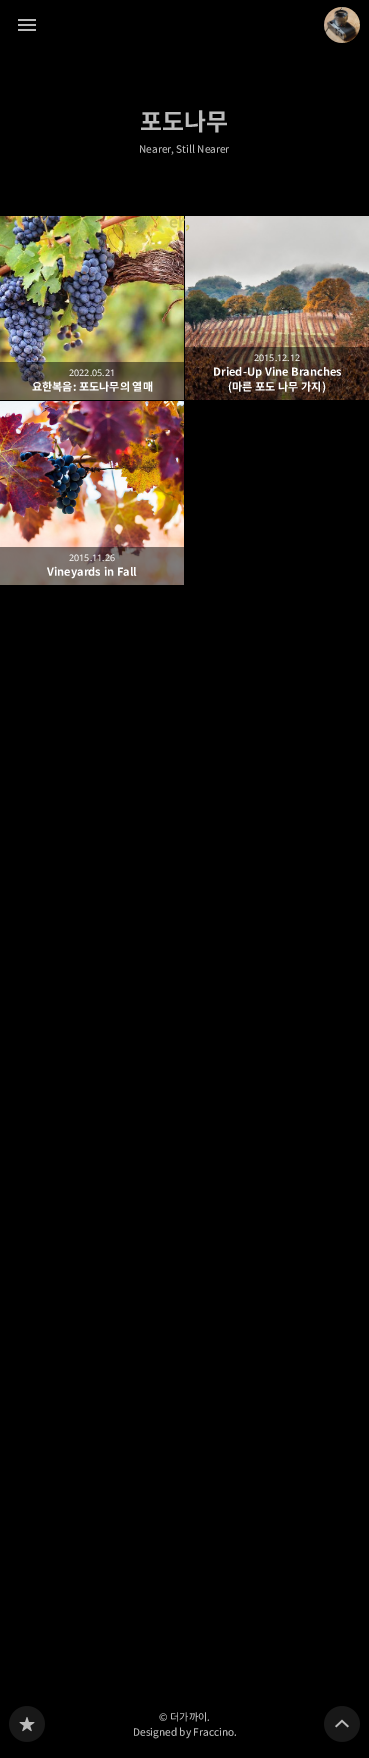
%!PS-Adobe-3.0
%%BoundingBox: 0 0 369 1758
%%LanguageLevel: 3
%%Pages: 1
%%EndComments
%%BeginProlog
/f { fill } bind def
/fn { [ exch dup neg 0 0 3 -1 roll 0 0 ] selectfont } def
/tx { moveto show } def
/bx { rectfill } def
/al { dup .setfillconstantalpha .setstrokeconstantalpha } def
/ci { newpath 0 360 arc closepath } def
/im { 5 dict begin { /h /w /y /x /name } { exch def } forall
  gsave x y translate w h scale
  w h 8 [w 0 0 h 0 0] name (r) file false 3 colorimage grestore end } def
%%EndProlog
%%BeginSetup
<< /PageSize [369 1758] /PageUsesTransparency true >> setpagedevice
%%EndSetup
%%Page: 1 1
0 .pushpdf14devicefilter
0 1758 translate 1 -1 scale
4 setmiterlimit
0 setgray
0 0 369 1758 bx
(image0.raw) 18 19 18 12 im
(image1.raw) 324 7 36 36 im
/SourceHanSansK-Bold 26 fn
0.733 setgray
(포도나무) 140 131 tx
/SourceHanSansK-Regular 11 fn
(Nearer, Still Nearer) 139 153 tx
(image2.raw) 0 216 184 184 im
0.5 al
0 setgray
0 362 184 38 bx
/NotoSans-Regular 9 fn
1 al
1 setgray
(2022.05.21) 69 376 tx
/SourceHanSansK-Bold 12 fn
(요한복음: 포도나무의 열매) 32 391 tx
(image3.raw) 185 216 184 184 im
0.5 al
0 setgray
185 347 184 53 bx
/NotoSans-Regular 9 fn
1 al
1 setgray
(2015.12.12) 254 361 tx
/SourceHanSansK-Bold 12 fn
(Dried-Up Vine Branches) 213 376 tx
(\(마른 포도 나무 가지\)) 228 391 tx
(image4.raw) 0 401 184 184 im
0.5 al
0 setgray
0 547 184 38 bx
/NotoSans-Regular 9 fn
1 al
1 setgray
(2015.11.26) 69 561 tx
/SourceHanSansK-Bold 12 fn
(Vineyards in Fall) 47 576 tx
/SourceHanSansK-Bold 17 fn
0.812 0.784 0.373 setrgbcolor
(er,) 169 228 tx
0.733 setgray
27 1724 14 ci f
(image5.raw) 9 1706 36 36 im
/SourceHanSansK-Regular 11 fn
(© 더가까이.) 159 1721 tx
(Designed by Fraccino.) 133 1736 tx
342 1724 14 ci f
(image6.raw) 324 1706 36 36 im
.poppdf14devicefilter showpage
%%EOF
